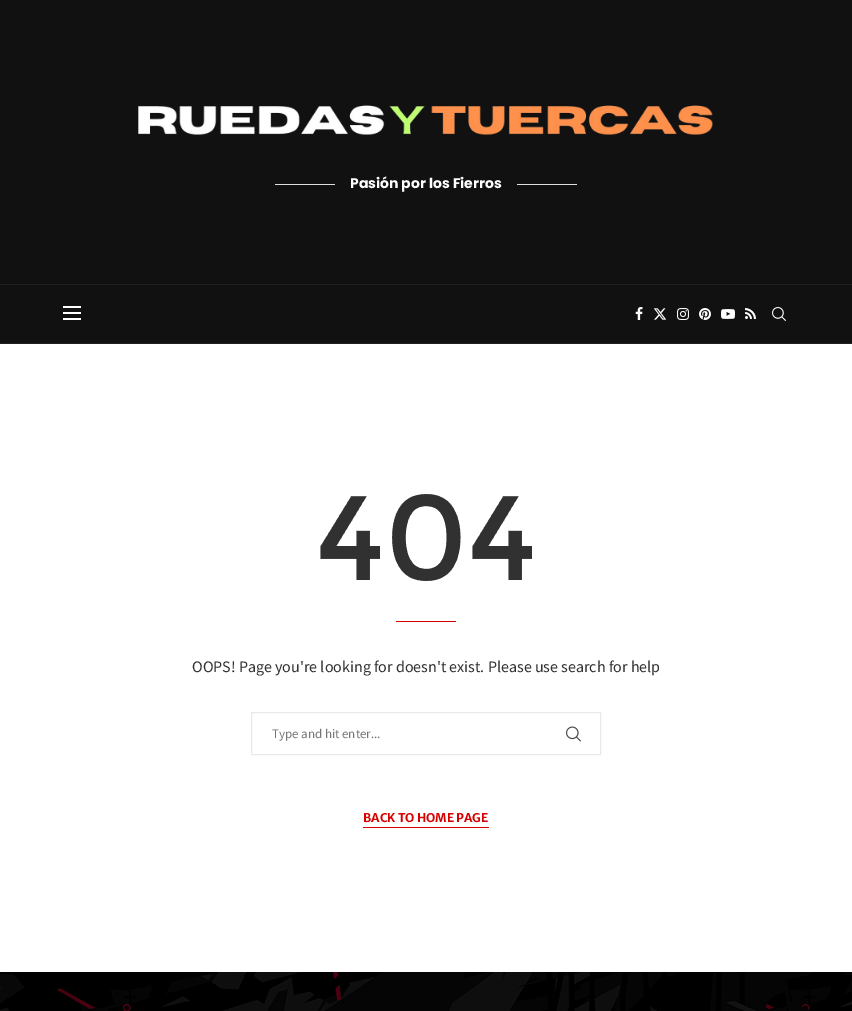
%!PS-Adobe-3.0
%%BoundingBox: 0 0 852 1011
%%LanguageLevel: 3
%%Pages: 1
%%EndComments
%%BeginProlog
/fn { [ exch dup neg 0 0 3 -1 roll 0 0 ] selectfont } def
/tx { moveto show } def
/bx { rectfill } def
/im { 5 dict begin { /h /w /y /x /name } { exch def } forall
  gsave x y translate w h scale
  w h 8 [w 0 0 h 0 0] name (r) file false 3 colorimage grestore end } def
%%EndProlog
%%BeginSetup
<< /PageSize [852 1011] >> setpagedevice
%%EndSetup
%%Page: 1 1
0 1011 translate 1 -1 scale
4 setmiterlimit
1 setgray
0 0 852 1011 bx
0.067 setgray
0 0 852 284 bx
(image0.raw) 138 105 575 30 im
0.871 setgray
275 184 60 1 bx
/Poppins-Bold 14 fn
1 setgray
(Pasión por los Fierros) 350 188 tx
0.871 setgray
517 184 60 1 bx
0.067 setgray
0 285 852 58 bx
0.129 setgray
0 284 852 1 bx
0 343 852 1 bx
1 setgray
63 306 18 2 bx
63 312 18 2 bx
63 318 18 2 bx
(image1.raw) 635 307 8 13 im
(image2.raw) 653 308 14 12 im
(image3.raw) 677 308 12 12 im
(image4.raw) 699 308 12 12 im
(image5.raw) 721 309 14 10 im
(image6.raw) 745 308 11 11 im
(image7.raw) 772 307 14 14 im
(image8.raw) 320 494 212 87 im
0.835 0 0 setrgbcolor
396 621 60 1 bx
/SourceSansPro-Regular 16 fn
0.192 setgray
(OOPS! Page you're looking for doesn't exist. Please use search for help) 192 672 tx
0.914 setgray
251.5 712.5 349 42 rectstroke
/SourceSansPro-Regular 13 fn
0.459 setgray
(Type and hit enter...) 272 738 tx
(image9.raw) 566 726 15 16 im
/MerriweatherSans-Bold 12 fn
0.835 0 0 setrgbcolor
(BACK TO HOME PAGE) 363 822 tx
363 827 126 1 bx
0 setgray
0 972 852 39 bx
(image10.raw) 0 972 852 39 im
showpage
%%EOF
